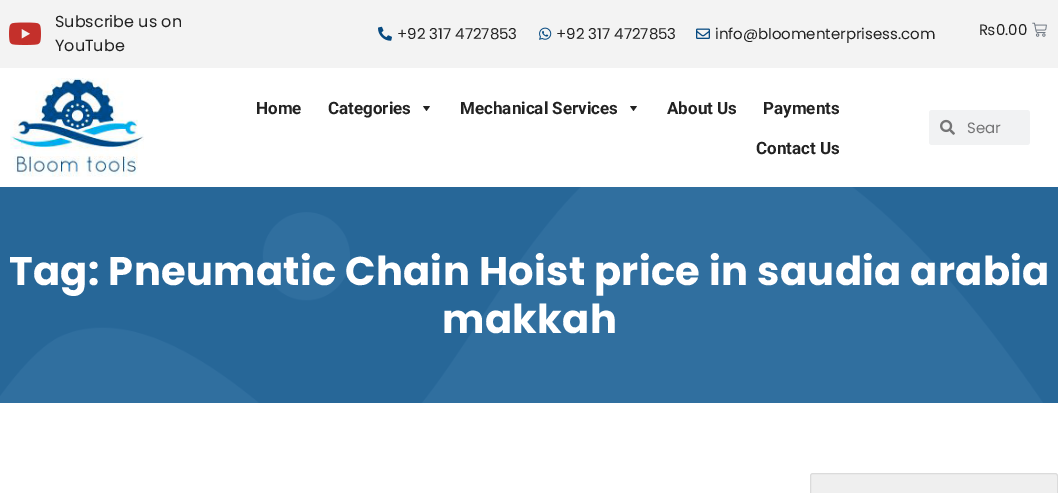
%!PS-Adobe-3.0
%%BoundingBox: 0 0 1058 493
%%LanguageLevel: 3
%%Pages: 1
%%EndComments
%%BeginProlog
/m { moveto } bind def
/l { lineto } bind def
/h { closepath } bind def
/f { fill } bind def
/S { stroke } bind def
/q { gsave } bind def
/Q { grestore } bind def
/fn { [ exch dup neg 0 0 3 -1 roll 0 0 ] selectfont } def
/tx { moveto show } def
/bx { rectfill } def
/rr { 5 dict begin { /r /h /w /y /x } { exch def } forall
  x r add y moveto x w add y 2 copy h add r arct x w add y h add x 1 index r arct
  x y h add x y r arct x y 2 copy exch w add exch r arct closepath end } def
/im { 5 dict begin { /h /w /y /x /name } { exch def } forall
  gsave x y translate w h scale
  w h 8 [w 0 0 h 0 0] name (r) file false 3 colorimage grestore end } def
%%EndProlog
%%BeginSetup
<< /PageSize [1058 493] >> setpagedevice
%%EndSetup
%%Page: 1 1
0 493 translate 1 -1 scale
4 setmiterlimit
1 setgray
0 0 1058 493 bx
0.953 setgray
0 0 1058 68 bx
(image0.raw) 9 22 32 23 im
/Poppins-Regular 16 fn
0.133 setgray
(Subscribe us on) 55 27 tx
(YouTube) 55 51 tx
(image1.raw) 378 26 14 15 im
/Poppins-Regular 15 fn
(+92 317 4727853) 397 39 tx
(image2.raw) 539 27 13 13 im
(+92 317 4727853) 556 39 tx
(image3.raw) 696 28 14 11 im
(info@bloomenterprisess.com) 715 39 tx
(₨0.00) 979 35 tx
(image4.raw) 1032 22 15 15 im
(image5.raw) 10 78 134 99 im
/Roboto-Bold 17 fn
(Home) 256 114 tx
(Categories) 328 114 tx
430 106 m 426.5 111 l 423 106 l h f
(Mechanical Services) 460 114 tx
637 106 m 633.5 111 l 630 106 l h f
(About Us) 667 114 tx
(Payments) 763 114 tx
(Contact Us) 756 154 tx
0.945 0.949 0.953 setrgbcolor
929 110 101 35 3 rr f
(image6.raw) 940 119 15 16 im
/Poppins-Regular 15 fn
0.459 0.459 0.463 setrgbcolor
(Sear) 967 133 tx
(image7.raw) 0 187 1058 216 im
/Poppins-Bold 40 fn
1 setgray
9 285 m 0.3 0 (Tag: Pneumatic Chain Hoist price in saudia arabia) ashow
442 333 m 0.3 0 (makkah) ashow
0.937 setgray
810.5 473.5 247 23 2.5 rr q f Q
0.859 setgray
S
showpage
%%EOF
